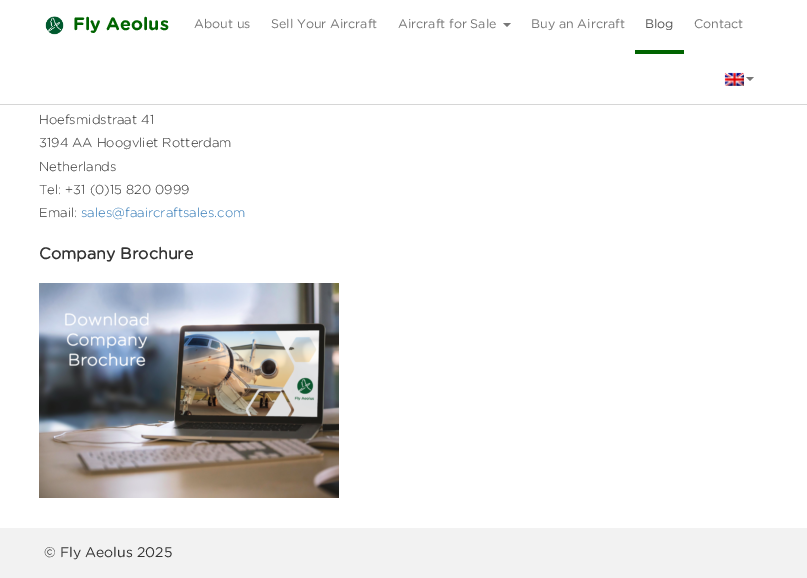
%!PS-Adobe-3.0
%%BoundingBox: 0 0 807 578
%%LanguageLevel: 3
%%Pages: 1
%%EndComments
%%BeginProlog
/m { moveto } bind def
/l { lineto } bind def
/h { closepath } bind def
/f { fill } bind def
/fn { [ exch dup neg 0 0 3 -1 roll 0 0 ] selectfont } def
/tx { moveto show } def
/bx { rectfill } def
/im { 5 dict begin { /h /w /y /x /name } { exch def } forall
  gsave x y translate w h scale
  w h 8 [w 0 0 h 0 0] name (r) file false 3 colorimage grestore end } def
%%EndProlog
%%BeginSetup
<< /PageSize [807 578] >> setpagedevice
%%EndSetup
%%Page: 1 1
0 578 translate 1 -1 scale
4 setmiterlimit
0.949 setgray
0 0 807 578 bx
1 setgray
0 0 807 104 bx
0.839 setgray
0 104 807 1 bx
(image0.raw) 45 16 19 19 im
/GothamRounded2-Bold 18 fn
0 0.392 0 setrgbcolor
(Fly Aeolus) 73 30 tx
/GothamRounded-Regular 12.5 fn
0.467 setgray
(About us) 194 28 tx
(Sell Your Aircraft) 271 28 tx
(Aircraft for Sale) 398 28 tx
503 23 m 511 23 l 507 27 l h f
(Buy an Aircraft) 531 28 tx
0 0.392 0 setrgbcolor
635 50 49 4 bx
0.333 setgray
(Blog) 645 28 tx
0.467 setgray
(Contact) 694 28 tx
(image1.raw) 724 72 20 14 im
746 77 m 754 77 l 750 81 l h f
1 setgray
0 105 807 423 bx
/GothamRounded-Light 13 fn
0.2 setgray
(Hoefsmidstraat 41) 39 124 tx
(3194 AA Hoogvliet Rotterdam) 39 147 tx
(Netherlands) 39 171 tx
(Tel: +31 \(0\)15 820 0999) 39 194 tx
(Email:) 39 217 tx
0.2 0.478 0.718 setrgbcolor
(sales@faaircraftsales.com) 81 217 tx
/GothamRounded-Bold 16 fn
0.2 setgray
(Company Brochure) 39 259 tx
(image2.raw) 39 283 300 215 im
/GothamRounded-Regular 14 fn
(© Fly Aeolus 2025) 44 557 tx
showpage
%%EOF
